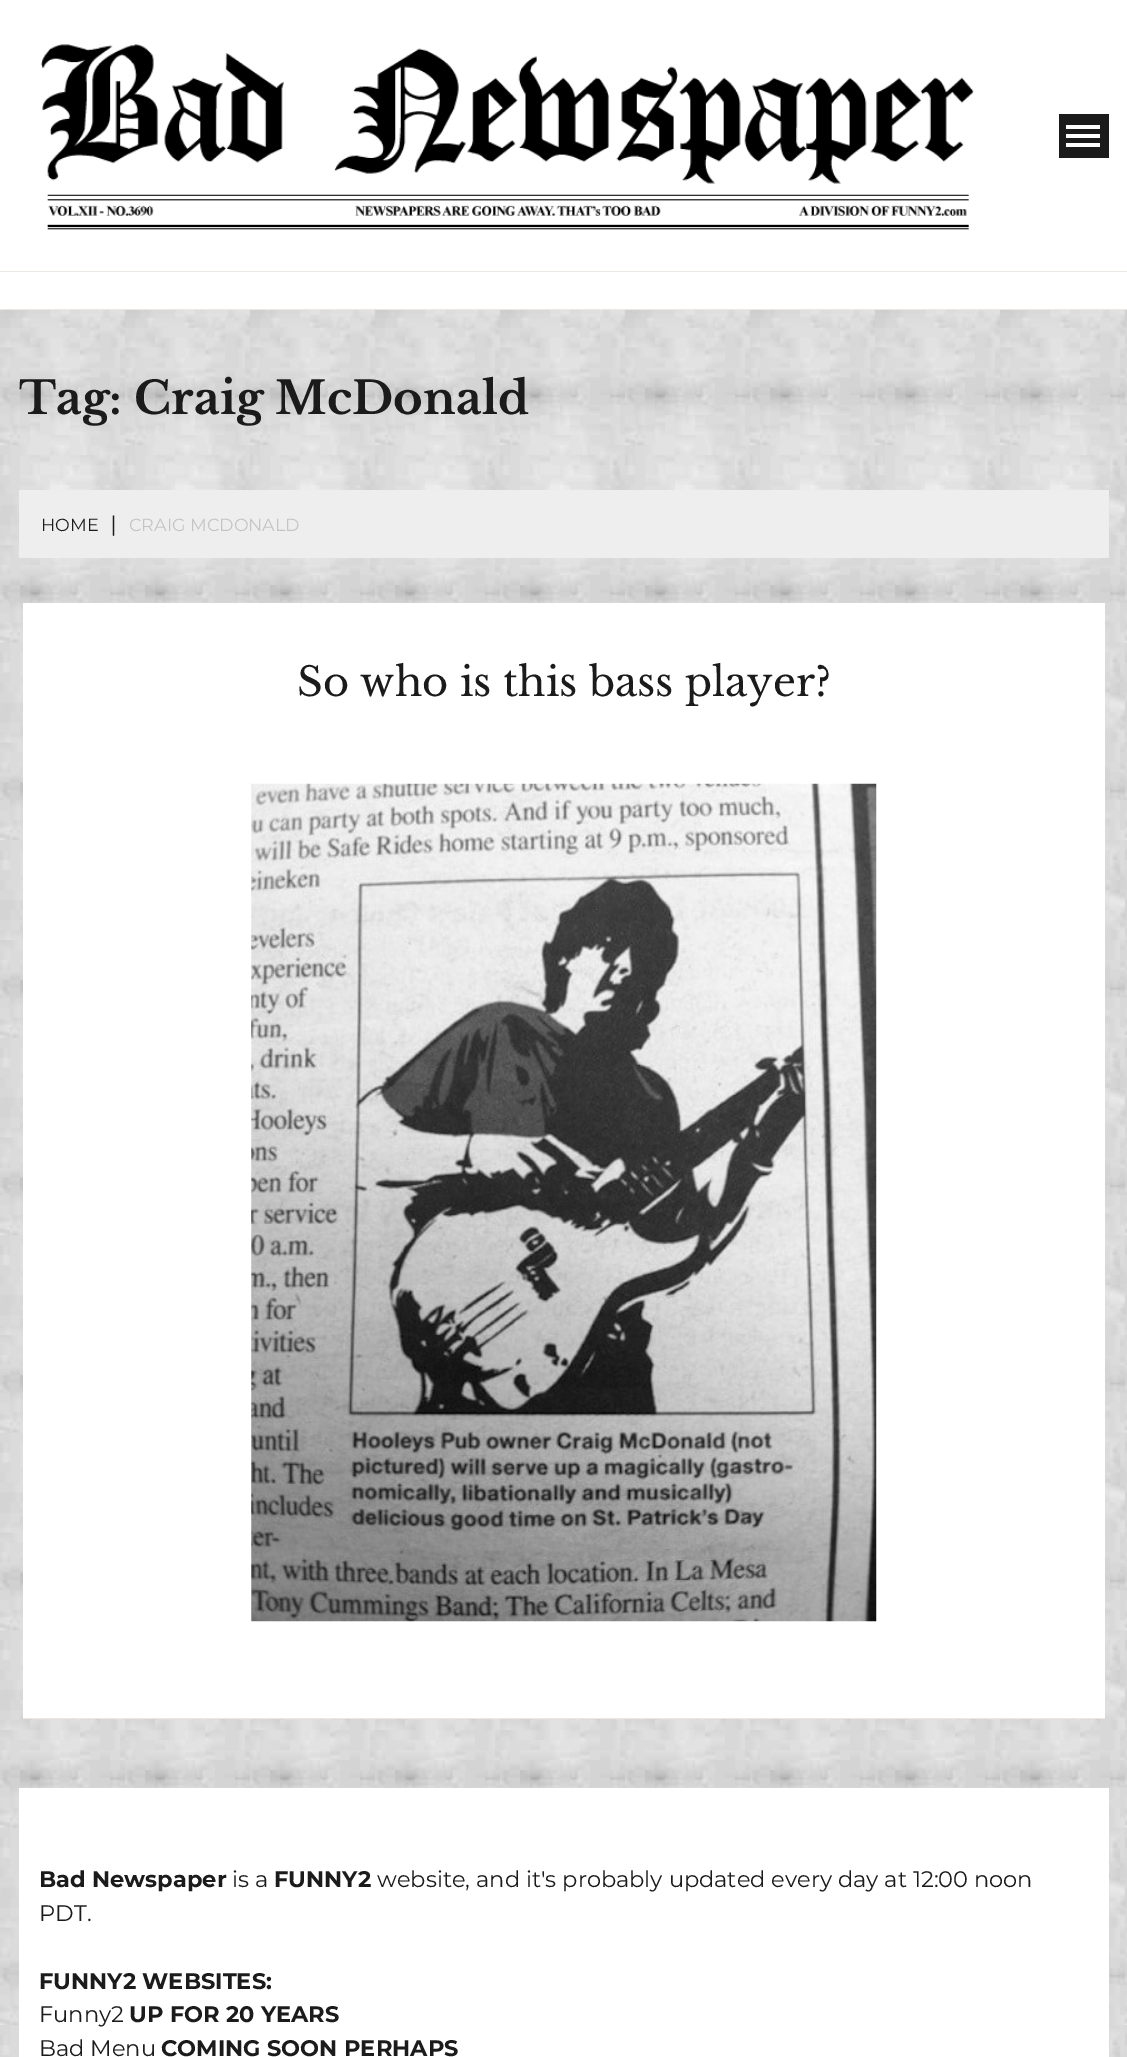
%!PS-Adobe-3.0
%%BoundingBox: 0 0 1127 2057
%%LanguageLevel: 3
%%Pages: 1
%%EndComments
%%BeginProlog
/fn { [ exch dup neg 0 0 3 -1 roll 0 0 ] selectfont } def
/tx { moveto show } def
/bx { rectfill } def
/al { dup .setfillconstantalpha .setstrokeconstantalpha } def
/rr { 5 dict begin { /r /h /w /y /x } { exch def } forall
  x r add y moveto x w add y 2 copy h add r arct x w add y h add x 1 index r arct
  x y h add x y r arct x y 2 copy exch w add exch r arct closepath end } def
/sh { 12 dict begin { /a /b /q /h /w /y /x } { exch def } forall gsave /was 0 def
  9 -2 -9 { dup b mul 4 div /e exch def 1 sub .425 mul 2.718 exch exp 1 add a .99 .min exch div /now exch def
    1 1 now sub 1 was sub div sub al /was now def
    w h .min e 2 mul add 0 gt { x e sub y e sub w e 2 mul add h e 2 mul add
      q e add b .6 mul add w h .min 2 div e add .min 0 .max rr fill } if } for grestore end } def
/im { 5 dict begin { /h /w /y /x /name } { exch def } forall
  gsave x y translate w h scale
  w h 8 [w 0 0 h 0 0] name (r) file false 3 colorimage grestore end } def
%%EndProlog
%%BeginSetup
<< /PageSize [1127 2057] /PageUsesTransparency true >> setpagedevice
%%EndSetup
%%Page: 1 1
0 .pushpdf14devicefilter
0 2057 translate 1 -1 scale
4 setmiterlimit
1 setgray
0 0 1127 2057 bx
(image0.raw) 0 310 1127 1747 im
0 setgray
0 6 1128 310 0 9.5 0.04 sh
1 setgray
0 0 1127 309 bx
(image1.raw) 41 44 933 186 im
0.106 setgray
1059 114 50 44 bx
1 setgray
1066 125 34 4 bx
1066 134 34 4 bx
1066 143 34 4 bx
0.933 0.902 0.886 setrgbcolor
0 271 1127 1 bx
0 309 1127 1 bx
/LibreBaskerville-Bold 45 fn
0.106 setgray
(Tag: Craig McDonald) 19 414 tx
0.933 setgray
19 490 1090 68 bx
/Montserrat-Regular 17.5 fn
0.106 setgray
(HOME) 41 531 tx
/LiberationSerif-Bold 22.5 fn
(|) 111 531 tx
/Montserrat-Regular 17.5 fn
0.769 setgray
(CRAIG MCDONALD) 129 531 tx
1 setgray
23 603 1082 1115 bx
0.933 0.902 0.886 setrgbcolor
23 1718 1082 1 bx
/LibreBaskerville-Regular 40 fn
0.106 setgray
(So who is this bass player?) 297 696 tx
(image2.raw) 251 783 626 839 im
1 setgray
19 1788 1090 269 bx
/Montserrat-Bold 22.5 fn
0.106 setgray
(Bad Newspaper) 39 1887 tx
/Montserrat-Regular 22.5 fn
(is a) 232 1887 tx
/Montserrat-Bold 22.5 fn
(FUNNY2) 274 1887 tx
/Montserrat-Regular 22.5 fn
(website, and it's probably updated every day at 12:00 noon) 377 1887 tx
(PDT.) 39 1921 tx
/Montserrat-Bold 22.5 fn
(FUNNY2 WEBSITES:) 39 1989 tx
/Montserrat-Regular 22.5 fn
(Funny2) 39 2022 tx
/Montserrat-Bold 22.5 fn
(UP FOR 20 YEARS) 129 2022 tx
/Montserrat-Regular 22.5 fn
(Bad Menu) 39 2056 tx
/Montserrat-Bold 22.5 fn
(COMING SOON) 161 2056 tx
(PERHAPS) 344 2056 tx
.poppdf14devicefilter showpage
%%EOF
